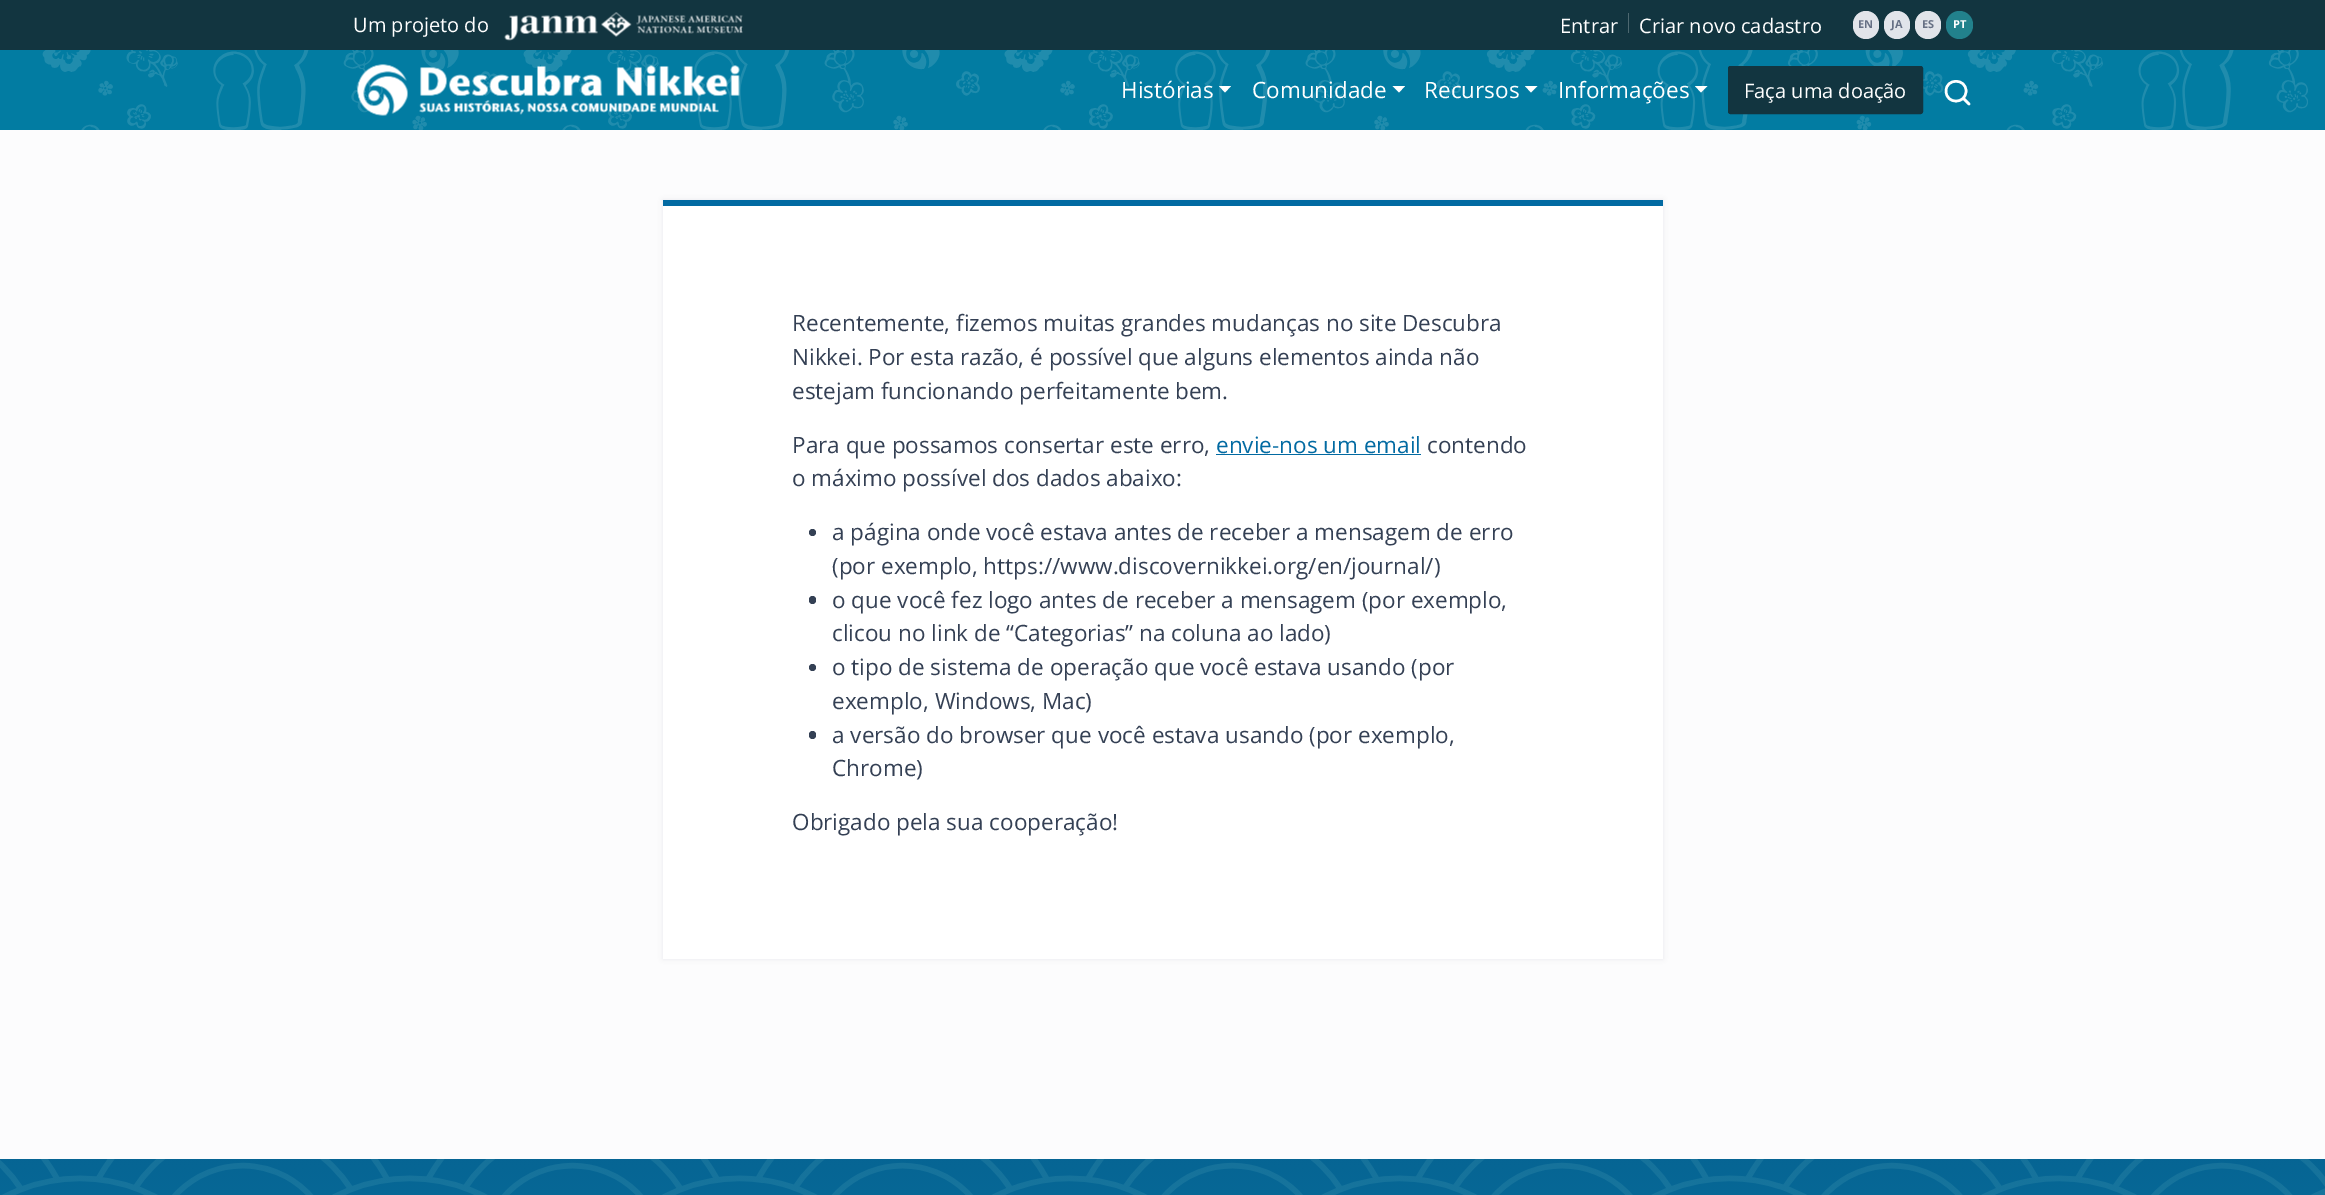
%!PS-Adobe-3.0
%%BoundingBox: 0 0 2325 1195
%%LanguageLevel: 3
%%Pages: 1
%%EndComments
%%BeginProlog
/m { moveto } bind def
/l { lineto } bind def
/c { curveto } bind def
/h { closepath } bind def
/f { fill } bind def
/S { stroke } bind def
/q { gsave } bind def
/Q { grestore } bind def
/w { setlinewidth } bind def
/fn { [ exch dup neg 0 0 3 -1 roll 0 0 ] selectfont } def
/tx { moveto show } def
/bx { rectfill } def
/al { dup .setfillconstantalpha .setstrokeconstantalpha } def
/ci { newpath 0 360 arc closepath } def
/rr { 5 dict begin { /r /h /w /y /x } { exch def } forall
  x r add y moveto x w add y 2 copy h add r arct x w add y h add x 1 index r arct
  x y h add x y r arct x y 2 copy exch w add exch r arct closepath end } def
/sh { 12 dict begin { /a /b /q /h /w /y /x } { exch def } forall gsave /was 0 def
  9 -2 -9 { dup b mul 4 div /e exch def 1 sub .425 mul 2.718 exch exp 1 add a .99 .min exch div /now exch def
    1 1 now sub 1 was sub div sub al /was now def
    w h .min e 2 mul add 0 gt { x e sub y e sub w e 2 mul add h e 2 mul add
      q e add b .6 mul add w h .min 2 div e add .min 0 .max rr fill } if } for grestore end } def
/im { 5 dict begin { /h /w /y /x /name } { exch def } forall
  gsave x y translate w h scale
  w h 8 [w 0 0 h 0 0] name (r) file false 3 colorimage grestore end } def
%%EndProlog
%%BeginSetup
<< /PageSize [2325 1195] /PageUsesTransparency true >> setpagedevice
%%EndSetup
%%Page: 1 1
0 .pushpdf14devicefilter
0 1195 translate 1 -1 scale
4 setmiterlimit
0.988 0.988 0.992 setrgbcolor
0 0 2325 1195 bx
0.071 0.208 0.251 setrgbcolor
0 0 2325 50 bx
/OpenSans-Regular 20 fn
1 setgray
(Um projeto do) 353 32 tx
(image0.raw) 504 12 239 29 im
(Entrar) 1560 33 tx
0.302 0.408 0.439 setrgbcolor
1628 13 1 20 bx
1 setgray
(Criar novo cadastro) 1639 33 tx
0.882 0.894 0.918 setrgbcolor
1853 11 26 28 13 rr f
/OpenSans-Bold 11 fn
0.4 0.439 0.522 setrgbcolor
(EN) 1858 28 tx
0.882 0.894 0.918 setrgbcolor
1884 11 26 28 13 rr f
0.4 0.439 0.522 setrgbcolor
(JA) 1891 28 tx
0.882 0.894 0.918 setrgbcolor
1915 11 26 28 13 rr f
0.4 0.439 0.522 setrgbcolor
(ES) 1922 28 tx
0.133 0.506 0.549 setrgbcolor
1946 11 27 28 13.5 rr f
1 setgray
(PT) 1953 28 tx
0.008 0.486 0.635 setrgbcolor
0 50 2325 80 bx
(image1.raw) 42 50 2266 80 im
(image2.raw) 357 64 383 52 im
/OpenSans-Regular 22.5 fn
1 setgray
(Histórias) 1121 98 tx
1219 86 m 1231 86 l 1225 92.5 l h f
(Comunidade) 1252 98 tx
1392.5 86 m 1405 86 l 1399 92.5 l h f
(Recursos) 1424 98 tx
1525 86 m 1537.5 86 l 1531 92.5 l h f
(Informações) 1558 98 tx
1695 86 m 1707.5 86 l 1701 92.5 l h f
0.071 0.208 0.251 setrgbcolor
1728.5 66.5 194 47 2 rr q f Q
S
/OpenSans-Regular 20 fn
1 setgray
(Faça uma doação) 1744 98 tx
2.5 w
1 setlinecap
1 setlinejoin
1969 104 m 1963.5 98.5 l 1966 91 m 1966 104.5 1946 104.5 1946 91 c 1946 78 1966 78 1966 91 c h S
0.063 0.094 0.157 setrgbcolor
663 200 1000 759 0 2.5 0.07 sh
1 setgray
663 206 1000 753 bx
0.008 0.416 0.635 setrgbcolor
663 200 1000 6 bx
/OpenSans-Regular 22.5 fn
0.204 0.251 0.329 setrgbcolor
(Recentemente, fizemos muitas grandes mudanças no site Descubra) 792 331 tx
(Nikkei. Por esta razão, é possível que alguns elementos ainda não) 792 365 tx
(estejam funcionando perfeitamente bem.) 792 399 tx
(Para que possamos consertar este erro,) 792 453 tx
0.008 0.416 0.635 setrgbcolor
(envie-nos um email) 1216 453 tx
1216 454 205 1 bx
0.204 0.251 0.329 setrgbcolor
(contendo) 1427 453 tx
(o máximo possível dos dados abaixo:) 792 486 tx
812.5 532.5 3.5 ci f
(a página onde você estava antes de receber a mensagem de erro) 832 540 tx
(\(por exemplo, https://www.discovernikkei.org/en/journal/\)) 832 574 tx
809 596 7 8 3.5 rr f
(o que você fez logo antes de receber a mensagem \(por exemplo,) 832 608 tx
(clicou no link de “Categorias” na coluna ao lado\)) 832 641 tx
812.5 667.5 3.5 ci f
(o tipo de sistema de operação que você estava usando \(por) 832 675 tx
(exemplo, Windows, Mac\)) 832 709 tx
809 731 7 8 3.5 rr f
(a versão do browser que você estava usando \(por exemplo,) 832 743 tx
(Chrome\)) 832 776 tx
(Obrigado pela sua cooperação!) 792 830 tx
(image3.raw) 0 1159 2325 36 im
.poppdf14devicefilter showpage
%%EOF
